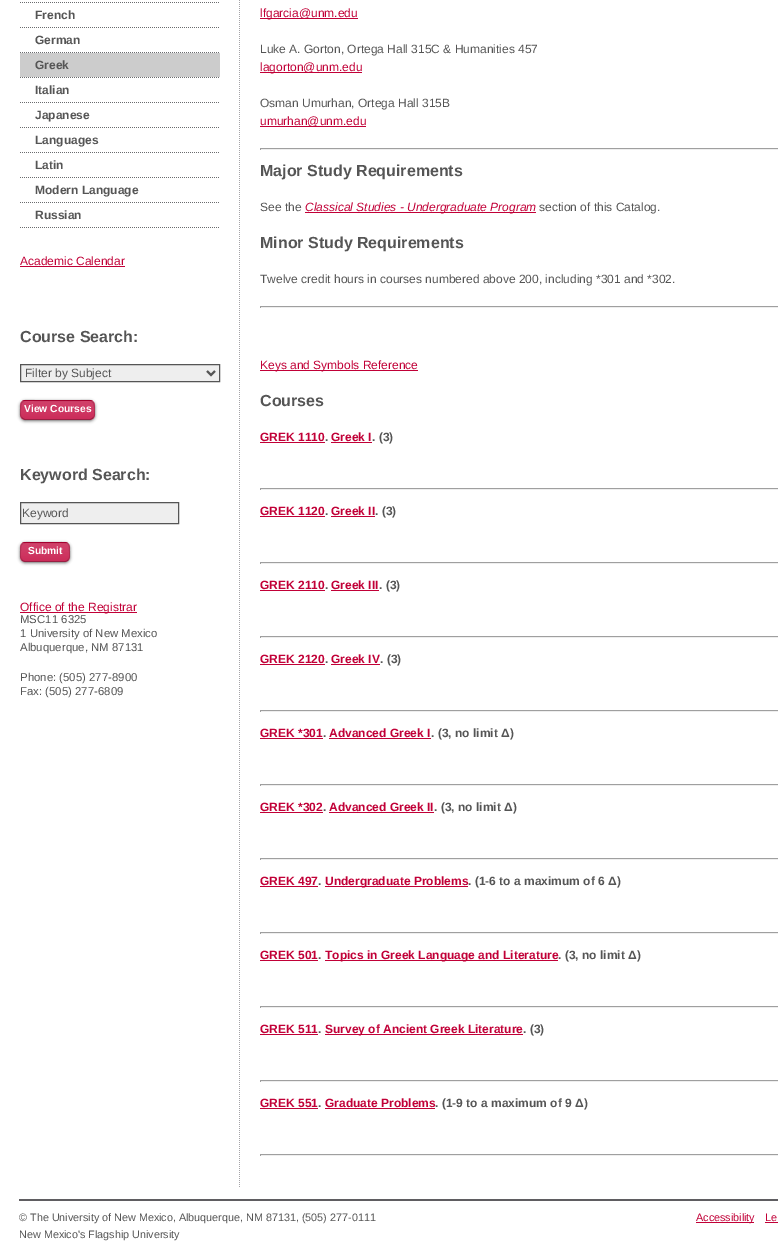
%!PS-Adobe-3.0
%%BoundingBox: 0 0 778 1253
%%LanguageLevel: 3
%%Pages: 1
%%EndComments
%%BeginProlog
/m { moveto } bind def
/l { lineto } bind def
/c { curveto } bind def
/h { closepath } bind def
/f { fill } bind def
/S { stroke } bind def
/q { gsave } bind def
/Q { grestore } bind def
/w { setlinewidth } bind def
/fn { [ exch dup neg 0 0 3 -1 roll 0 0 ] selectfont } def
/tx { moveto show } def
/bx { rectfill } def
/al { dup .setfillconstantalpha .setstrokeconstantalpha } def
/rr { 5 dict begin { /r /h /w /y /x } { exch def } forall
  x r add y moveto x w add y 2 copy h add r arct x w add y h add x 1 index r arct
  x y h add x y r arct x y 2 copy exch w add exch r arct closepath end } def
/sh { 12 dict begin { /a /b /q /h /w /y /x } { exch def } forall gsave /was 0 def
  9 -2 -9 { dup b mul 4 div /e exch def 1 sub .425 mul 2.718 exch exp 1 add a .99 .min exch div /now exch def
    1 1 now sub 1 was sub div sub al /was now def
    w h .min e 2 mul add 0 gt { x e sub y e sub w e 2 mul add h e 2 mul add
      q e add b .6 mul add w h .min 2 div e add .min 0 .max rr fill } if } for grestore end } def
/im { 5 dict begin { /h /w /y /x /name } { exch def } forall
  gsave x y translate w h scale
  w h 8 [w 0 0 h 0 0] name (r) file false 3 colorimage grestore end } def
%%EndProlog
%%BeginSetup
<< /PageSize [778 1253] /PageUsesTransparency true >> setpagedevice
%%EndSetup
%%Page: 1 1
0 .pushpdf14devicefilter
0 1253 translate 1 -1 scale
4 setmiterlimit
1 setgray
0 0 778 1253 bx
(image0.raw) 239 0 1 1187 im
(image1.raw) 20 2 199 1 im
(image1.raw) 20 27 199 1 im
/LiberationSans-Bold 12 fn
0.333 setgray
(French) 35 19 tx
(image1.raw) 20 52 199 1 im
(German) 35 44 tx
(image1.raw) 20 77 199 1 im
0.8 setgray
20 53 200 24 bx
0.333 setgray
(Greek) 35 69 tx
(image1.raw) 20 102 199 1 im
(Italian) 35 94 tx
(image1.raw) 20 127 199 1 im
(Japanese) 35 119 tx
(image1.raw) 20 152 199 1 im
(Languages) 35 144 tx
(image1.raw) 20 177 199 1 im
(Latin) 35 169 tx
(image1.raw) 20 202 199 1 im
(Modern Language) 35 194 tx
(image1.raw) 20 227 199 1 im
(Russian) 35 219 tx
/LiberationSans-Regular 12 fn
0.757 0 0.216 setrgbcolor
(Academic Calendar) 20 265 tx
20 266 105 1 bx
260 18 98 1 bx
(lfgarcia@unm.edu) 260 17 tx
0.333 setgray
(Luke A. Gorton, Ortega Hall 315C & Humanities 457) 260 53 tx
0.757 0 0.216 setrgbcolor
260 72 102 1 bx
(lagorton@unm.edu) 260 71 tx
0.333 setgray
(Osman Umurhan, Ortega Hall 315B) 260 107 tx
0.757 0 0.216 setrgbcolor
260 126 106 1 bx
(umurhan@unm.edu) 260 125 tx
0.624 setgray
260 148 518 1 bx
0.933 setgray
260 149 518 1 bx
0.624 setgray
260 148 1 2 bx
/LiberationSans-Bold 16 fn
0.333 setgray
(Major Study Requirements) 260 176 tx
/LiberationSans-Regular 12 fn
(See the) 260 211 tx
0.757 0 0.216 setrgbcolor
305 212 231 1 bx
/LiberationSans-Italic 12 fn
(Classical Studies - Undergraduate Program) 305 211 tx
/LiberationSans-Regular 12 fn
0.333 setgray
(section of this Catalog.) 539 211 tx
/LiberationSans-Bold 16 fn
(Minor Study Requirements) 260 248 tx
/LiberationSans-Regular 12 fn
(Twelve credit hours in courses numbered above 200, including *301 and *302.) 260 283 tx
0.624 setgray
260 306 518 1 bx
0.933 setgray
260 307 518 1 bx
0.624 setgray
260 306 1 2 bx
0.757 0 0.216 setrgbcolor
260 370 158 1 bx
(Keys and Symbols Reference) 260 369 tx
/LiberationSans-Bold 16 fn
0.333 setgray
(Courses) 260 406 tx
/LiberationSans-Bold 12 fn
0.757 0 0.216 setrgbcolor
(GREK 1110) 260 441 tx
0.333 setgray
(.) 325 441 tx
0.757 0 0.216 setrgbcolor
260 442 65 1 bx
331 442 41 1 bx
(Greek I) 331 441 tx
0.333 setgray
(. \(3\)) 372 441 tx
0.624 setgray
260 488 518 1 bx
0.933 setgray
260 489 518 1 bx
0.624 setgray
260 488 1 2 bx
0.757 0 0.216 setrgbcolor
(GREK 1120) 260 515 tx
0.333 setgray
(.) 325 515 tx
0.757 0 0.216 setrgbcolor
260 516 65 1 bx
331 516 44 1 bx
(Greek II) 331 515 tx
0.333 setgray
(. \(3\)) 375 515 tx
0.624 setgray
260 562 518 1 bx
0.933 setgray
260 563 518 1 bx
0.624 setgray
260 562 1 2 bx
0.757 0 0.216 setrgbcolor
(GREK 2110) 260 589 tx
0.333 setgray
(.) 325 589 tx
0.757 0 0.216 setrgbcolor
260 590 65 1 bx
331 590 48 1 bx
(Greek III) 331 589 tx
0.333 setgray
(. \(3\)) 379 589 tx
0.624 setgray
260 636 518 1 bx
0.933 setgray
260 637 518 1 bx
0.624 setgray
260 636 1 2 bx
0.757 0 0.216 setrgbcolor
(GREK 2120) 260 663 tx
0.333 setgray
(.) 325 663 tx
0.757 0 0.216 setrgbcolor
260 664 65 1 bx
331 664 49 1 bx
(Greek IV) 331 663 tx
0.333 setgray
(. \(3\)) 380 663 tx
0.624 setgray
260 710 518 1 bx
0.933 setgray
260 711 518 1 bx
0.624 setgray
260 710 1 2 bx
0.757 0 0.216 setrgbcolor
(GREK *301) 260 737 tx
0.333 setgray
(.) 323 737 tx
0.757 0 0.216 setrgbcolor
260 738 63 1 bx
329 738 102 1 bx
(Advanced Greek I) 329 737 tx
0.333 setgray
(. \(3, no limit Δ\)) 431 737 tx
0.624 setgray
260 784 518 1 bx
0.933 setgray
260 785 518 1 bx
0.624 setgray
260 784 1 2 bx
0.757 0 0.216 setrgbcolor
(GREK *302) 260 811 tx
0.333 setgray
(.) 323 811 tx
0.757 0 0.216 setrgbcolor
260 812 63 1 bx
329 812 105 1 bx
(Advanced Greek II) 329 811 tx
0.333 setgray
(. \(3, no limit Δ\)) 434 811 tx
0.624 setgray
260 858 518 1 bx
0.933 setgray
260 859 518 1 bx
0.624 setgray
260 858 1 2 bx
0.757 0 0.216 setrgbcolor
(GREK 497) 260 885 tx
0.333 setgray
(.) 318 885 tx
0.757 0 0.216 setrgbcolor
260 886 58 1 bx
325 886 143 1 bx
(Undergraduate Problems) 325 885 tx
0.333 setgray
(. \(1-6 to a maximum of 6 Δ\)) 468 885 tx
0.624 setgray
260 932 518 1 bx
0.933 setgray
260 933 518 1 bx
0.624 setgray
260 932 1 2 bx
0.757 0 0.216 setrgbcolor
(GREK 501) 260 959 tx
0.333 setgray
(.) 318 959 tx
0.757 0 0.216 setrgbcolor
260 960 58 1 bx
325 960 233 1 bx
(Topics in Greek Language and Literature) 325 959 tx
0.333 setgray
(. \(3, no limit Δ\)) 558 959 tx
0.624 setgray
260 1006 518 1 bx
0.933 setgray
260 1007 518 1 bx
0.624 setgray
260 1006 1 2 bx
0.757 0 0.216 setrgbcolor
(GREK 511) 260 1033 tx
0.333 setgray
(.) 318 1033 tx
0.757 0 0.216 setrgbcolor
260 1034 58 1 bx
325 1034 198 1 bx
(Survey of Ancient Greek Literature) 325 1033 tx
0.333 setgray
(. \(3\)) 523 1033 tx
0.624 setgray
260 1080 518 1 bx
0.933 setgray
260 1081 518 1 bx
0.624 setgray
260 1080 1 2 bx
0.757 0 0.216 setrgbcolor
(GREK 551) 260 1107 tx
0.333 setgray
(.) 318 1107 tx
0.757 0 0.216 setrgbcolor
260 1108 58 1 bx
325 1108 110 1 bx
(Graduate Problems) 325 1107 tx
0.333 setgray
(. \(1-9 to a maximum of 9 Δ\)) 435 1107 tx
0.624 setgray
260 1154 518 1 bx
0.933 setgray
260 1155 518 1 bx
0.624 setgray
260 1154 1 2 bx
/LiberationSans-Bold 16 fn
0.333 setgray
(Course Search:) 20 342 tx
0.933 setgray
20.5 364.5 m 219.5 364.5 l 219.5 381.5 l 20.5 381.5 l h q f Q
0.333 setgray
S
2 w
207 371 m 211 375 l 215 371 l S
/LiberationSans-Regular 12 fn
(Filter by Subject) 25 377 tx
0 setgray
20 401 75 20 5 1.5 0.5 sh
0.757 0 0.216 setrgbcolor
20 400 75 20 5 rr f
(image2.raw) 20 401 75 19 im
0.25 al
0 setgray
1 w
93 418 m 90.5 419.5 l 24.5 419.5 l 22 418 l S
0.15 al
22 418 m 19.5 416 20.5 411.5 20.5 408.5 c 20.5 398 25.5 400.5 36 400.5 c 79 400.5 l 89.5 400.5 94.5 398 94.5 408.5 c 94.5 411.5 95.5 416 93 418 c S
/LiberationSans-Bold 10.25 fn
1 al
1 setgray
(View Courses) 24 412 tx
/LiberationSans-Bold 16 fn
0.333 setgray
(Keyword Search:) 20 480 tx
0.933 setgray
20.5 502.5 m 178.5 502.5 l 178.5 523.5 l 20.5 523.5 l h q f Q
0.333 setgray
S
/LiberationSans-Regular 12 fn
(Keyword) 22 517 tx
0 setgray
20 543 50 20 5 1.5 0.5 sh
0.757 0 0.216 setrgbcolor
20 542 50 20 5 rr f
(image3.raw) 20 543 50 19 im
0.25 al
0 setgray
68 560 m 67.5 561 66 561.5 65 561.5 c 25 561.5 l 24 561.5 22.5 561 22 560 c S
0.15 al
22 560 m 19.5 558 20.5 553.5 20.5 550.5 c 20.5 541.5 23 542.5 31.5 542.5 c 58.5 542.5 l 68.5 542.5 69.5 542 69.5 552 c 69.5 554.5 70.5 558 68 560 c S
/LiberationSans-Bold 10.25 fn
1 al
1 setgray
(Submit) 28 554 tx
0.757 0 0.216 setrgbcolor
20 612 117 1 bx
/LiberationSans-Regular 12 fn
(Office of the Registrar) 20 611 tx
/LiberationSans-Regular 11.4 fn
0.333 setgray
(MSC11 6325) 20 623 tx
(1 University of New Mexico) 20 637 tx
(Albuquerque, NM 87131) 20 651 tx
(Phone: \(505\) 277-8900) 20 681 tx
(Fax: \(505\) 277-6809) 20 695 tx
0.373 0.365 0.38 setrgbcolor
19 1199 759 2 bx
/LiberationSans-Regular 10.8 fn
0.333 setgray
(© The University of New Mexico, Albuquerque, NM 87131, \(505\) 277-0111) 19 1221 tx
(New Mexico's Flagship University) 19 1238 tx
0.757 0 0.216 setrgbcolor
696 1222 58 1 bx
(Accessibility) 696 1221 tx
(Le) 765 1221 tx
765 1222 13 1 bx
.poppdf14devicefilter showpage
%%EOF
